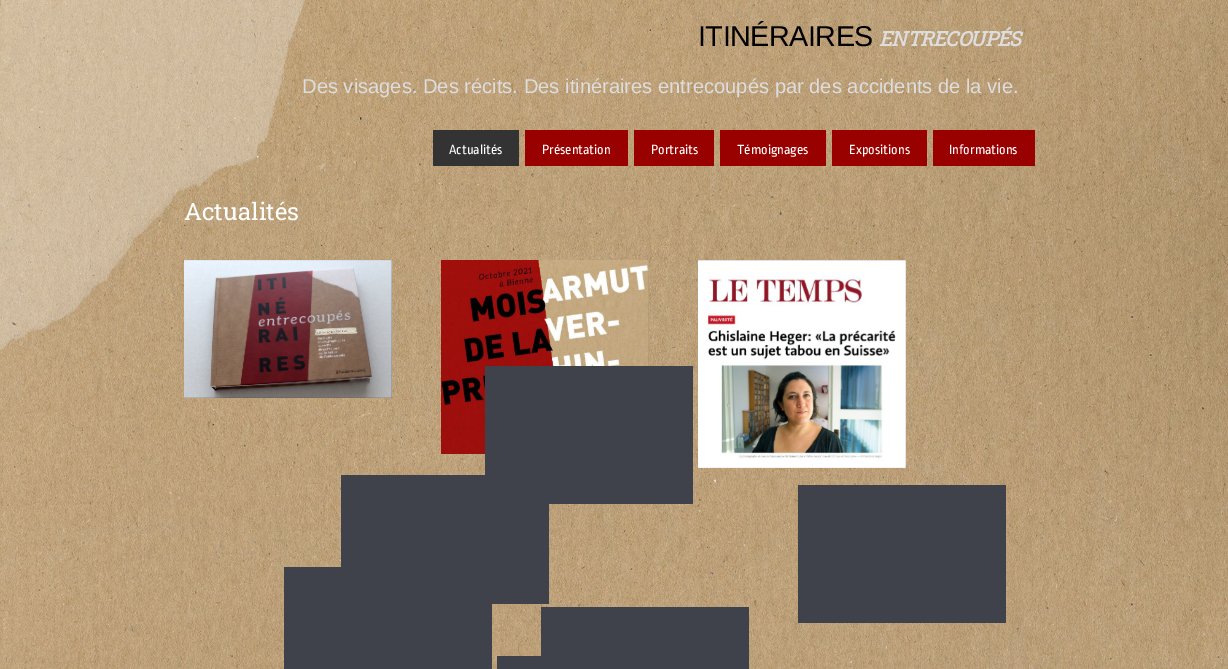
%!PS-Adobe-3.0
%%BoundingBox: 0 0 1228 669
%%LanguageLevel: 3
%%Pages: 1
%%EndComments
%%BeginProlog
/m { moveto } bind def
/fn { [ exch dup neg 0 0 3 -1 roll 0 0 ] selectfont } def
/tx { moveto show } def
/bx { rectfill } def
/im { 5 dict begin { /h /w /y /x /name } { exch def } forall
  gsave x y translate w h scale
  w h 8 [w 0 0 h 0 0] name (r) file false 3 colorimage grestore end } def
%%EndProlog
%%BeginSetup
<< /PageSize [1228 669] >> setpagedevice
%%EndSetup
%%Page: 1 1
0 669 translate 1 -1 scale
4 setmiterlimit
1 setgray
0 0 1228 669 bx
(image0.raw) 0 0 1228 669 im
(image1.raw) 0 0 306 352 im
/LiberationSans-Regular 28.75 fn
0 setgray
698 46 m -0.5 0 (ITINÉRAIRES) ashow
/RobotoSlab-BoldItalic 20.15 fn
0.867 setgray
879 46 m -0.5 0 (ENTRECOUPÉS) ashow
/LiberationSans-Regular 20.15 fn
(Des visages. Des récits. Des itinéraires entrecoupés par des accidents de la vie.) 302 93 tx
0.2 0.2 0.204 setrgbcolor
433 130 86 36 bx
/RopaSans-Regular 14 fn
1 setgray
(Actualités) 449 154 tx
0.6 0 0 setrgbcolor
525 130 103 36 bx
1 setgray
(Présentation) 542 154 tx
0.6 0 0 setrgbcolor
634 130 80 36 bx
1 setgray
(Portraits) 651 154 tx
0.6 0 0 setrgbcolor
720 130 106 36 bx
1 setgray
(Témoignages) 737 154 tx
0.6 0 0 setrgbcolor
832 130 95 36 bx
1 setgray
(Expositions) 849 154 tx
0.6 0 0 setrgbcolor
933 130 102 36 bx
1 setgray
(Informations) 949 154 tx
/RobotoSlab-Regular 24 fn
(Actualités) 184 220 tx
0.247 0.259 0.29 setrgbcolor
184 260 208 138 bx
(image2.raw) 184 260 208 138 im
(image3.raw) 441 260 208 194 im
(image4.raw) 698 260 208 208 im
485 366 208 138 bx
341 475 208 129 bx
798 485 208 138 bx
284 567 208 102 bx
497 656 44 13 bx
541 607 208 62 bx
showpage
%%EOF
